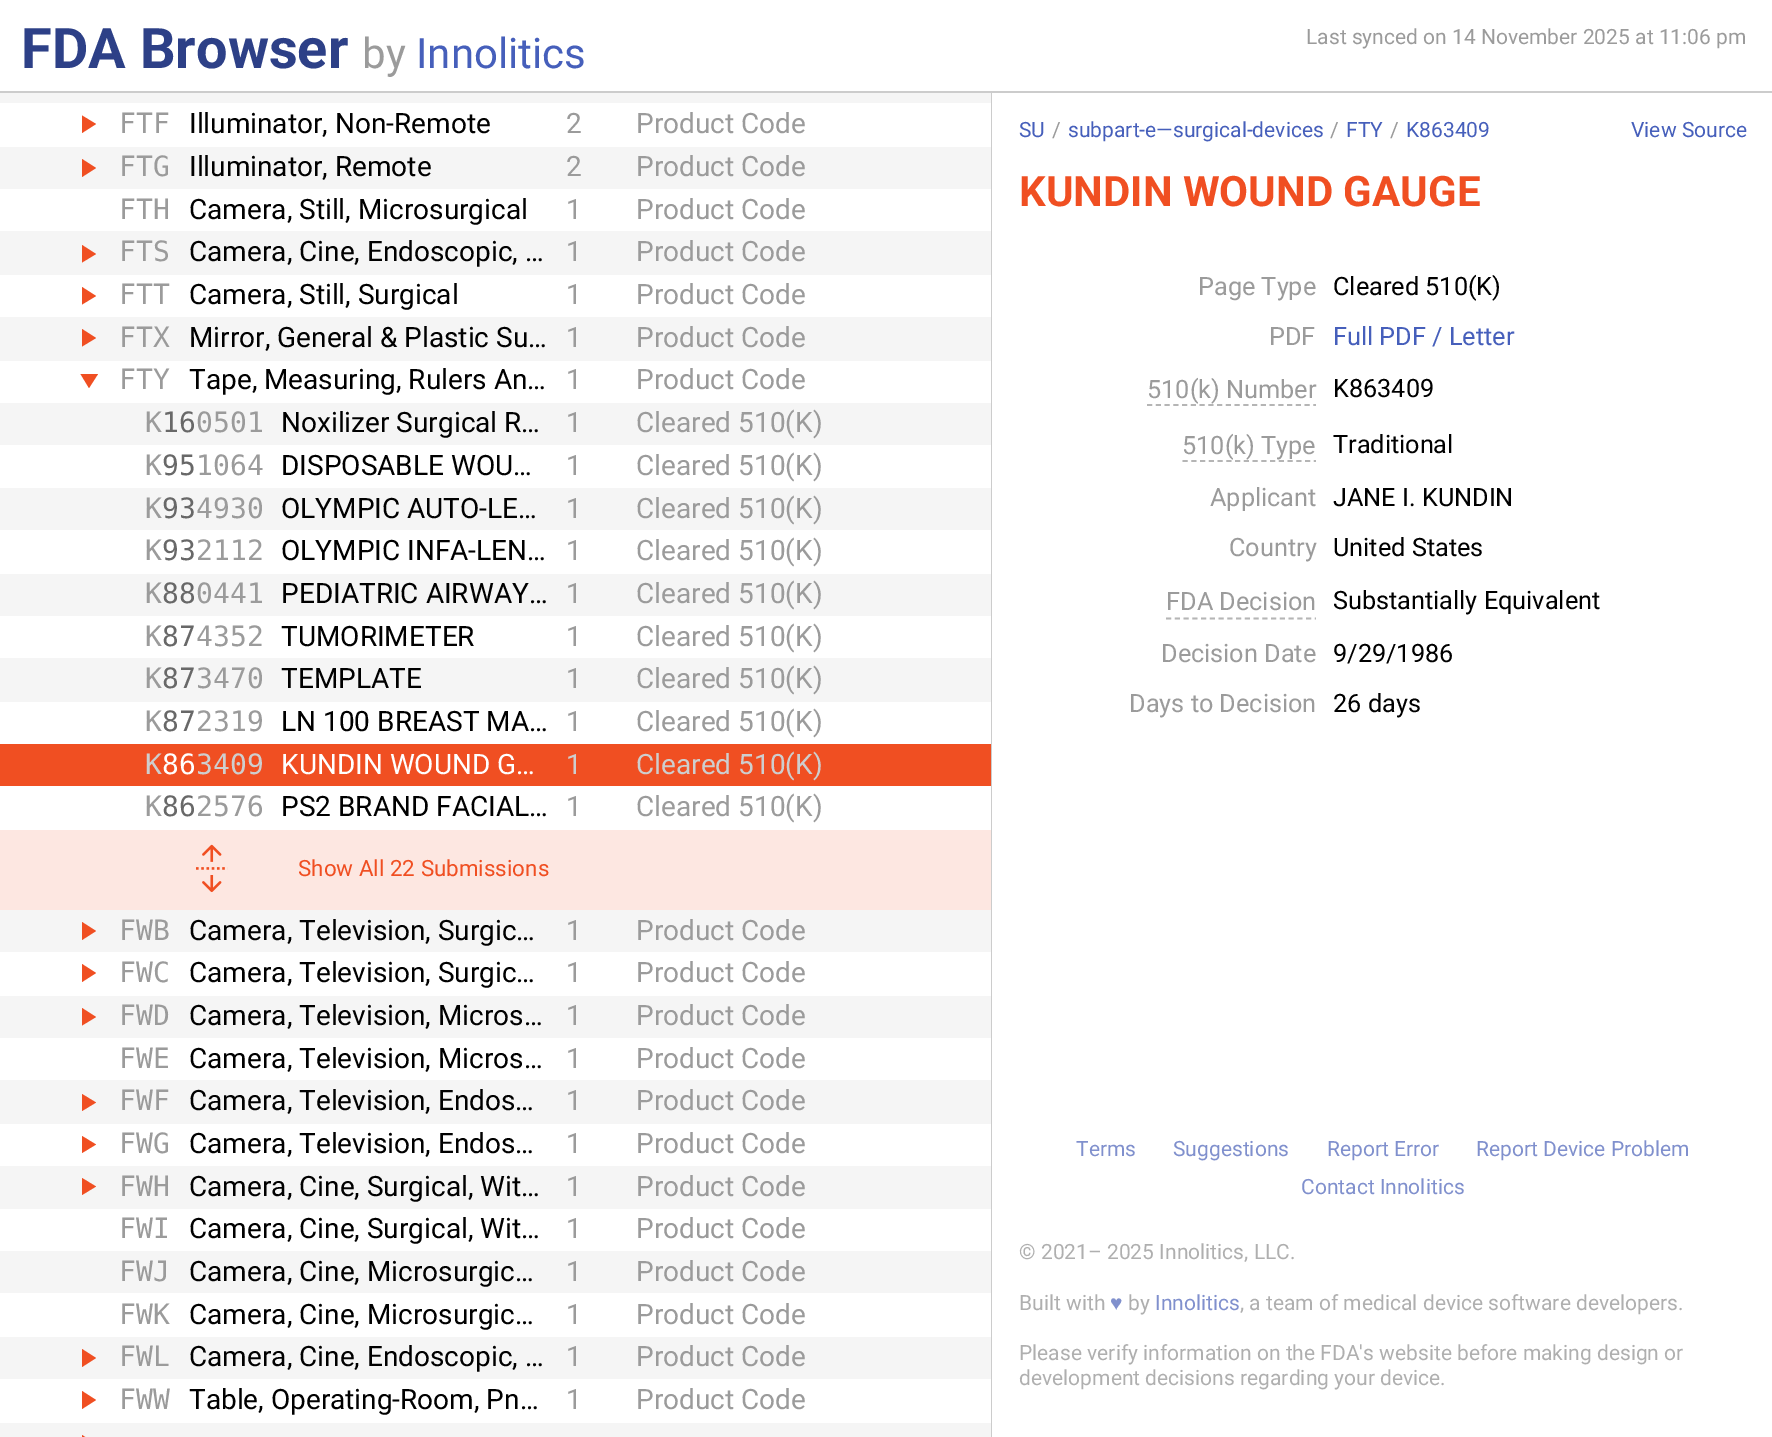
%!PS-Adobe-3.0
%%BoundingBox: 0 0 1772 1437
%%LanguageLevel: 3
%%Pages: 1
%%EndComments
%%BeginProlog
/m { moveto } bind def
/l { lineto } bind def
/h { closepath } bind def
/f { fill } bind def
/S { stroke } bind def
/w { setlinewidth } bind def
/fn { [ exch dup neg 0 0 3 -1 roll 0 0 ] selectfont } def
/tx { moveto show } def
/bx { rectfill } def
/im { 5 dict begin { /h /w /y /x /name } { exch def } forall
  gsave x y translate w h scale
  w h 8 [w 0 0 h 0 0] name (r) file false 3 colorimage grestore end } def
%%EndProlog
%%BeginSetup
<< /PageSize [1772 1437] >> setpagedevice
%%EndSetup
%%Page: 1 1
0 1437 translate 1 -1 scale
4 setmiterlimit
1 setgray
0 0 1772 1437 bx
0.8 setgray
0 91 1772 2 bx
/Roboto-Bold 56 fn
0.176 0.251 0.529 setrgbcolor
(FDA Browser) 21 68 tx
/Roboto-Regular 42 fn
0.608 setgray
(by) 362 68 tx
0.275 0.373 0.733 setrgbcolor
(Innolitics) 416 68 tx
0.8 setgray
991 93 1 1344 bx
0.961 setgray
0 93 991 1344 bx
1 setgray
0 103 991 44 bx
0.941 0.31 0.133 setrgbcolor
82 133 m 82 115.5 l 96 124 l h f
/DejaVuSansMono-Regular 28 fn
0.608 setgray
(FTF) 119 133 tx
/Roboto-Regular 28 fn
0 setgray
(Illuminator, Non-Remote) 189 133 tx
0.608 setgray
(2) 566 133 tx
(Product Code) 636 133 tx
0.941 0.31 0.133 setrgbcolor
82 177 m 82 159 l 96 168 l h f
/DejaVuSansMono-Regular 28 fn
0.608 setgray
(FTG) 119 176 tx
/Roboto-Regular 28 fn
0 setgray
(Illuminator, Remote) 189 176 tx
0.608 setgray
(2) 566 176 tx
(Product Code) 636 176 tx
1 setgray
0 189 991 42 bx
/DejaVuSansMono-Regular 28 fn
0.608 setgray
(FTH) 119 219 tx
/Roboto-Regular 28 fn
0 setgray
(Camera, Still, Microsurgical) 189 219 tx
0.608 setgray
(1) 566 219 tx
(Product Code) 636 219 tx
0.941 0.31 0.133 setrgbcolor
82 262.5 m 82 245 l 96 254 l h f
/DejaVuSansMono-Regular 28 fn
0.608 setgray
(FTS) 119 261 tx
/Roboto-Regular 28 fn
0 setgray
(Camera, Cine, Endoscopic, …) 189 261 tx
0.608 setgray
(1) 566 261 tx
(Product Code) 636 261 tx
1 setgray
0 275 991 42 bx
0.941 0.31 0.133 setrgbcolor
82 304.5 m 82 287 l 96 296 l h f
/DejaVuSansMono-Regular 28 fn
0.608 setgray
(FTT) 119 304 tx
/Roboto-Regular 28 fn
0 setgray
(Camera, Still, Surgical) 189 304 tx
0.608 setgray
(1) 566 304 tx
(Product Code) 636 304 tx
0.941 0.31 0.133 setrgbcolor
82 346.5 m 82 329 l 96 338 l h f
/DejaVuSansMono-Regular 28 fn
0.608 setgray
(FTX) 119 347 tx
/Roboto-Regular 28 fn
0 setgray
(Mirror, General & Plastic Su…) 189 347 tx
0.608 setgray
(1) 566 347 tx
(Product Code) 636 347 tx
1 setgray
0 361 991 469 bx
0.941 0.31 0.133 setrgbcolor
80.5 374 m 98 374 l 89 388 l h f
/DejaVuSansMono-Regular 28 fn
0.608 setgray
(FTY) 119 389 tx
/Roboto-Regular 28 fn
0 setgray
(Tape, Measuring, Rulers An…) 189 389 tx
0.608 setgray
(1) 566 389 tx
(Product Code) 636 389 tx
0.961 setgray
0 403 991 42 bx
/DejaVuSansMono-Regular 28 fn
0.608 setgray
(K) 145 432 tx
0.408 setgray
(16) 162 432 tx
0.608 setgray
(0501) 196 432 tx
/Roboto-Regular 28 fn
0 setgray
(Noxilizer Surgical R…) 281 432 tx
0.608 setgray
(1) 566 432 tx
(Cleared 510\(K\)) 636 432 tx
/DejaVuSansMono-Regular 28 fn
(K) 145 475 tx
0.408 setgray
(95) 162 475 tx
0.608 setgray
(1064) 196 475 tx
/Roboto-Regular 28 fn
0 setgray
(DISPOSABLE WOU…) 281 475 tx
0.608 setgray
(1) 566 475 tx
(Cleared 510\(K\)) 636 475 tx
0.961 setgray
0 488 991 42 bx
/DejaVuSansMono-Regular 28 fn
0.608 setgray
(K) 145 518 tx
0.408 setgray
(93) 162 518 tx
0.608 setgray
(4930) 196 518 tx
/Roboto-Regular 28 fn
0 setgray
(OLYMPIC AUTO-LE…) 281 518 tx
0.608 setgray
(1) 566 518 tx
(Cleared 510\(K\)) 636 518 tx
/DejaVuSansMono-Regular 28 fn
(K) 145 560 tx
0.408 setgray
(93) 162 560 tx
0.608 setgray
(2112) 196 560 tx
/Roboto-Regular 28 fn
0 setgray
(OLYMPIC INFA-LEN…) 281 560 tx
0.608 setgray
(1) 566 560 tx
(Cleared 510\(K\)) 636 560 tx
0.961 setgray
0 574 991 42 bx
/DejaVuSansMono-Regular 28 fn
0.608 setgray
(K) 145 603 tx
0.408 setgray
(88) 162 603 tx
0.608 setgray
(0441) 196 603 tx
/Roboto-Regular 28 fn
0 setgray
(PEDIATRIC AIRWAY…) 281 603 tx
0.608 setgray
(1) 566 603 tx
(Cleared 510\(K\)) 636 603 tx
/DejaVuSansMono-Regular 28 fn
(K) 145 646 tx
0.408 setgray
(87) 162 646 tx
0.608 setgray
(4352) 196 646 tx
/Roboto-Regular 28 fn
0 setgray
(TUMORIMETER) 281 646 tx
0.608 setgray
(1) 566 646 tx
(Cleared 510\(K\)) 636 646 tx
0.961 setgray
0 658 991 44 bx
/DejaVuSansMono-Regular 28 fn
0.608 setgray
(K) 145 688 tx
0.408 setgray
(87) 162 688 tx
0.608 setgray
(3470) 196 688 tx
/Roboto-Regular 28 fn
0 setgray
(TEMPLATE) 281 688 tx
0.608 setgray
(1) 566 688 tx
(Cleared 510\(K\)) 636 688 tx
/DejaVuSansMono-Regular 28 fn
(K) 145 731 tx
0.408 setgray
(87) 162 731 tx
0.608 setgray
(2319) 196 731 tx
/Roboto-Regular 28 fn
0 setgray
(LN 100 BREAST MA…) 281 731 tx
0.608 setgray
(1) 566 731 tx
(Cleared 510\(K\)) 636 731 tx
0.941 0.31 0.133 setrgbcolor
0 744 991 42 bx
/DejaVuSansMono-Regular 28 fn
0.808 setgray
(K) 145 774 tx
1 setgray
(86) 162 774 tx
0.808 setgray
(3409) 196 774 tx
/Roboto-Regular 28 fn
1 setgray
(KUNDIN WOUND G…) 281 774 tx
0.808 setgray
(1) 566 774 tx
(Cleared 510\(K\)) 636 774 tx
/DejaVuSansMono-Regular 28 fn
0.608 setgray
(K) 145 816 tx
0.408 setgray
(86) 162 816 tx
0.608 setgray
(2576) 196 816 tx
/Roboto-Regular 28 fn
0 setgray
(PS2 BRAND FACIAL…) 281 816 tx
0.608 setgray
(1) 566 816 tx
(Cleared 510\(K\)) 636 816 tx
0.992 0.906 0.882 setrgbcolor
0 830 991 80 bx
(image0.raw) 196 844 32 49 im
/Roboto-Regular 22.4 fn
0.941 0.31 0.133 setrgbcolor
(Show All 22 Submissions) 298 876 tx
82 940 m 82 922 l 96 931 l h f
/DejaVuSansMono-Regular 28 fn
0.608 setgray
(FWB) 119 940 tx
/Roboto-Regular 28 fn
0 setgray
(Camera, Television, Surgic…) 189 940 tx
0.608 setgray
(1) 566 940 tx
(Product Code) 636 940 tx
1 setgray
0 952 991 44 bx
0.941 0.31 0.133 setrgbcolor
82 982 m 82 964 l 96 973 l h f
/DejaVuSansMono-Regular 28 fn
0.608 setgray
(FWC) 119 982 tx
/Roboto-Regular 28 fn
0 setgray
(Camera, Television, Surgic…) 189 982 tx
0.608 setgray
(1) 566 982 tx
(Product Code) 636 982 tx
0.941 0.31 0.133 setrgbcolor
82 1025.5 m 82 1008 l 96 1017 l h f
/DejaVuSansMono-Regular 28 fn
0.608 setgray
(FWD) 119 1025 tx
/Roboto-Regular 28 fn
0 setgray
(Camera, Television, Micros…) 189 1025 tx
0.608 setgray
(1) 566 1025 tx
(Product Code) 636 1025 tx
1 setgray
0 1038 991 42 bx
/DejaVuSansMono-Regular 28 fn
0.608 setgray
(FWE) 119 1068 tx
/Roboto-Regular 28 fn
0 setgray
(Camera, Television, Micros…) 189 1068 tx
0.608 setgray
(1) 566 1068 tx
(Product Code) 636 1068 tx
0.941 0.31 0.133 setrgbcolor
82 1111 m 82 1094 l 96 1102.5 l h f
/DejaVuSansMono-Regular 28 fn
0.608 setgray
(FWF) 119 1110 tx
/Roboto-Regular 28 fn
0 setgray
(Camera, Television, Endos…) 189 1110 tx
0.608 setgray
(1) 566 1110 tx
(Product Code) 636 1110 tx
1 setgray
0 1124 991 42 bx
0.941 0.31 0.133 setrgbcolor
82 1153 m 82 1136 l 96 1144.5 l h f
/DejaVuSansMono-Regular 28 fn
0.608 setgray
(FWG) 119 1153 tx
/Roboto-Regular 28 fn
0 setgray
(Camera, Television, Endos…) 189 1153 tx
0.608 setgray
(1) 566 1153 tx
(Product Code) 636 1153 tx
0.941 0.31 0.133 setrgbcolor
82 1195 m 82 1178 l 96 1186.5 l h f
/DejaVuSansMono-Regular 28 fn
0.608 setgray
(FWH) 119 1196 tx
/Roboto-Regular 28 fn
0 setgray
(Camera, Cine, Surgical, Wit…) 189 1196 tx
0.608 setgray
(1) 566 1196 tx
(Product Code) 636 1196 tx
1 setgray
0 1209 991 42 bx
/DejaVuSansMono-Regular 28 fn
0.608 setgray
(FWI) 119 1238 tx
/Roboto-Regular 28 fn
0 setgray
(Camera, Cine, Surgical, Wit…) 189 1238 tx
0.608 setgray
(1) 566 1238 tx
(Product Code) 636 1238 tx
/DejaVuSansMono-Regular 28 fn
(FWJ) 119 1281 tx
/Roboto-Regular 28 fn
0 setgray
(Camera, Cine, Microsurgic…) 189 1281 tx
0.608 setgray
(1) 566 1281 tx
(Product Code) 636 1281 tx
1 setgray
0 1293 991 44 bx
/DejaVuSansMono-Regular 28 fn
0.608 setgray
(FWK) 119 1324 tx
/Roboto-Regular 28 fn
0 setgray
(Camera, Cine, Microsurgic…) 189 1324 tx
0.608 setgray
(1) 566 1324 tx
(Product Code) 636 1324 tx
0.941 0.31 0.133 setrgbcolor
82 1367 m 82 1349 l 96 1358 l h f
/DejaVuSansMono-Regular 28 fn
0.608 setgray
(FWL) 119 1366 tx
/Roboto-Regular 28 fn
0 setgray
(Camera, Cine, Endoscopic, …) 189 1366 tx
0.608 setgray
(1) 566 1366 tx
(Product Code) 636 1366 tx
1 setgray
0 1379 991 44 bx
0.941 0.31 0.133 setrgbcolor
82 1409 m 82 1391 l 96 1400 l h f
/DejaVuSansMono-Regular 28 fn
0.608 setgray
(FWW) 119 1409 tx
/Roboto-Regular 28 fn
0 setgray
(Table, Operating-Room, Pn…) 189 1409 tx
0.608 setgray
(1) 566 1409 tx
(Product Code) 636 1409 tx
0.941 0.31 0.133 setrgbcolor
82 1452.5 m 82 1435 l 96 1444 l h f
/Roboto-Regular 21 fn
0.608 setgray
(Last synced on 14 November 2025 at 11:06 pm) 1306 44 tx
0.275 0.373 0.733 setrgbcolor
(SU) 1019 137 tx
0.608 setgray
(/) 1052 137 tx
0.275 0.373 0.733 setrgbcolor
(subpart-e—surgical-devices) 1068 137 tx
0.608 setgray
(/) 1330 137 tx
0.275 0.373 0.733 setrgbcolor
(FTY) 1346 137 tx
0.608 setgray
(/) 1390 137 tx
0.275 0.373 0.733 setrgbcolor
(K863409) 1406 137 tx
(View Source) 1631 137 tx
/Roboto-Bold 42 fn
0.941 0.31 0.133 setrgbcolor
(KUNDIN WOUND GAUGE) 1019 206 tx
/Roboto-Regular 25.25 fn
0.608 setgray
(Page Type) 1198 295 tx
0 setgray
(Cleared 510\(K\)) 1333 295 tx
0.608 setgray
(PDF) 1269 345 tx
0.275 0.373 0.733 setrgbcolor
(Full PDF / Letter) 1333 345 tx
0.608 setgray
(510\(k\) Number) 1147 398 tx
0.71 setgray
1.8 w
[5.25 3.5] 0 setdash
1147 405 m 1316 405 l S
0 setgray
(K863409) 1333 397 tx
0.608 setgray
(510\(k\) Type) 1182 454 tx
0.71 setgray
1182.5 461 m 1316 461 l S
0 setgray
(Traditional) 1333 453 tx
0.608 setgray
(Applicant) 1210 506 tx
0 setgray
(JANE I. KUNDIN) 1333 506 tx
0.608 setgray
(Country) 1229 556 tx
0 setgray
(United States) 1333 556 tx
0.608 setgray
(FDA Decision) 1166 610 tx
0.71 setgray
1166 618.5 m 1316 618.5 l S
0 setgray
(Substantially Equivalent) 1333 609 tx
0.608 setgray
(Decision Date) 1161 662 tx
0 setgray
(9/29/1986) 1333 662 tx
0.608 setgray
(Days to Decision) 1129 712 tx
0 setgray
(26 days) 1333 712 tx
/Roboto-Regular 21 fn
0.502 0.565 0.804 setrgbcolor
(Terms) 1076 1156 tx
(Suggestions) 1173 1156 tx
(Report Error) 1327 1156 tx
(Report Device Problem) 1476 1156 tx
(Contact Innolitics) 1301 1194 tx
0.686 setgray
(© 2021– 2025 Innolitics, LLC.) 1019 1259 tx
(Built with) 1019 1310 tx
/LiberationSans-Regular 21 fn
0.502 0.565 0.804 setrgbcolor
(♥) 1110 1310 tx
/Roboto-Regular 21 fn
0.686 setgray
(by) 1128 1310 tx
0.502 0.565 0.804 setrgbcolor
(Innolitics) 1155 1310 tx
0.686 setgray
(, a team of medical device software developers.) 1240 1310 tx
(Please verify information on the FDA's website before making design or) 1019 1360 tx
(development decisions regarding your device.) 1019 1385 tx
showpage
%%EOF
